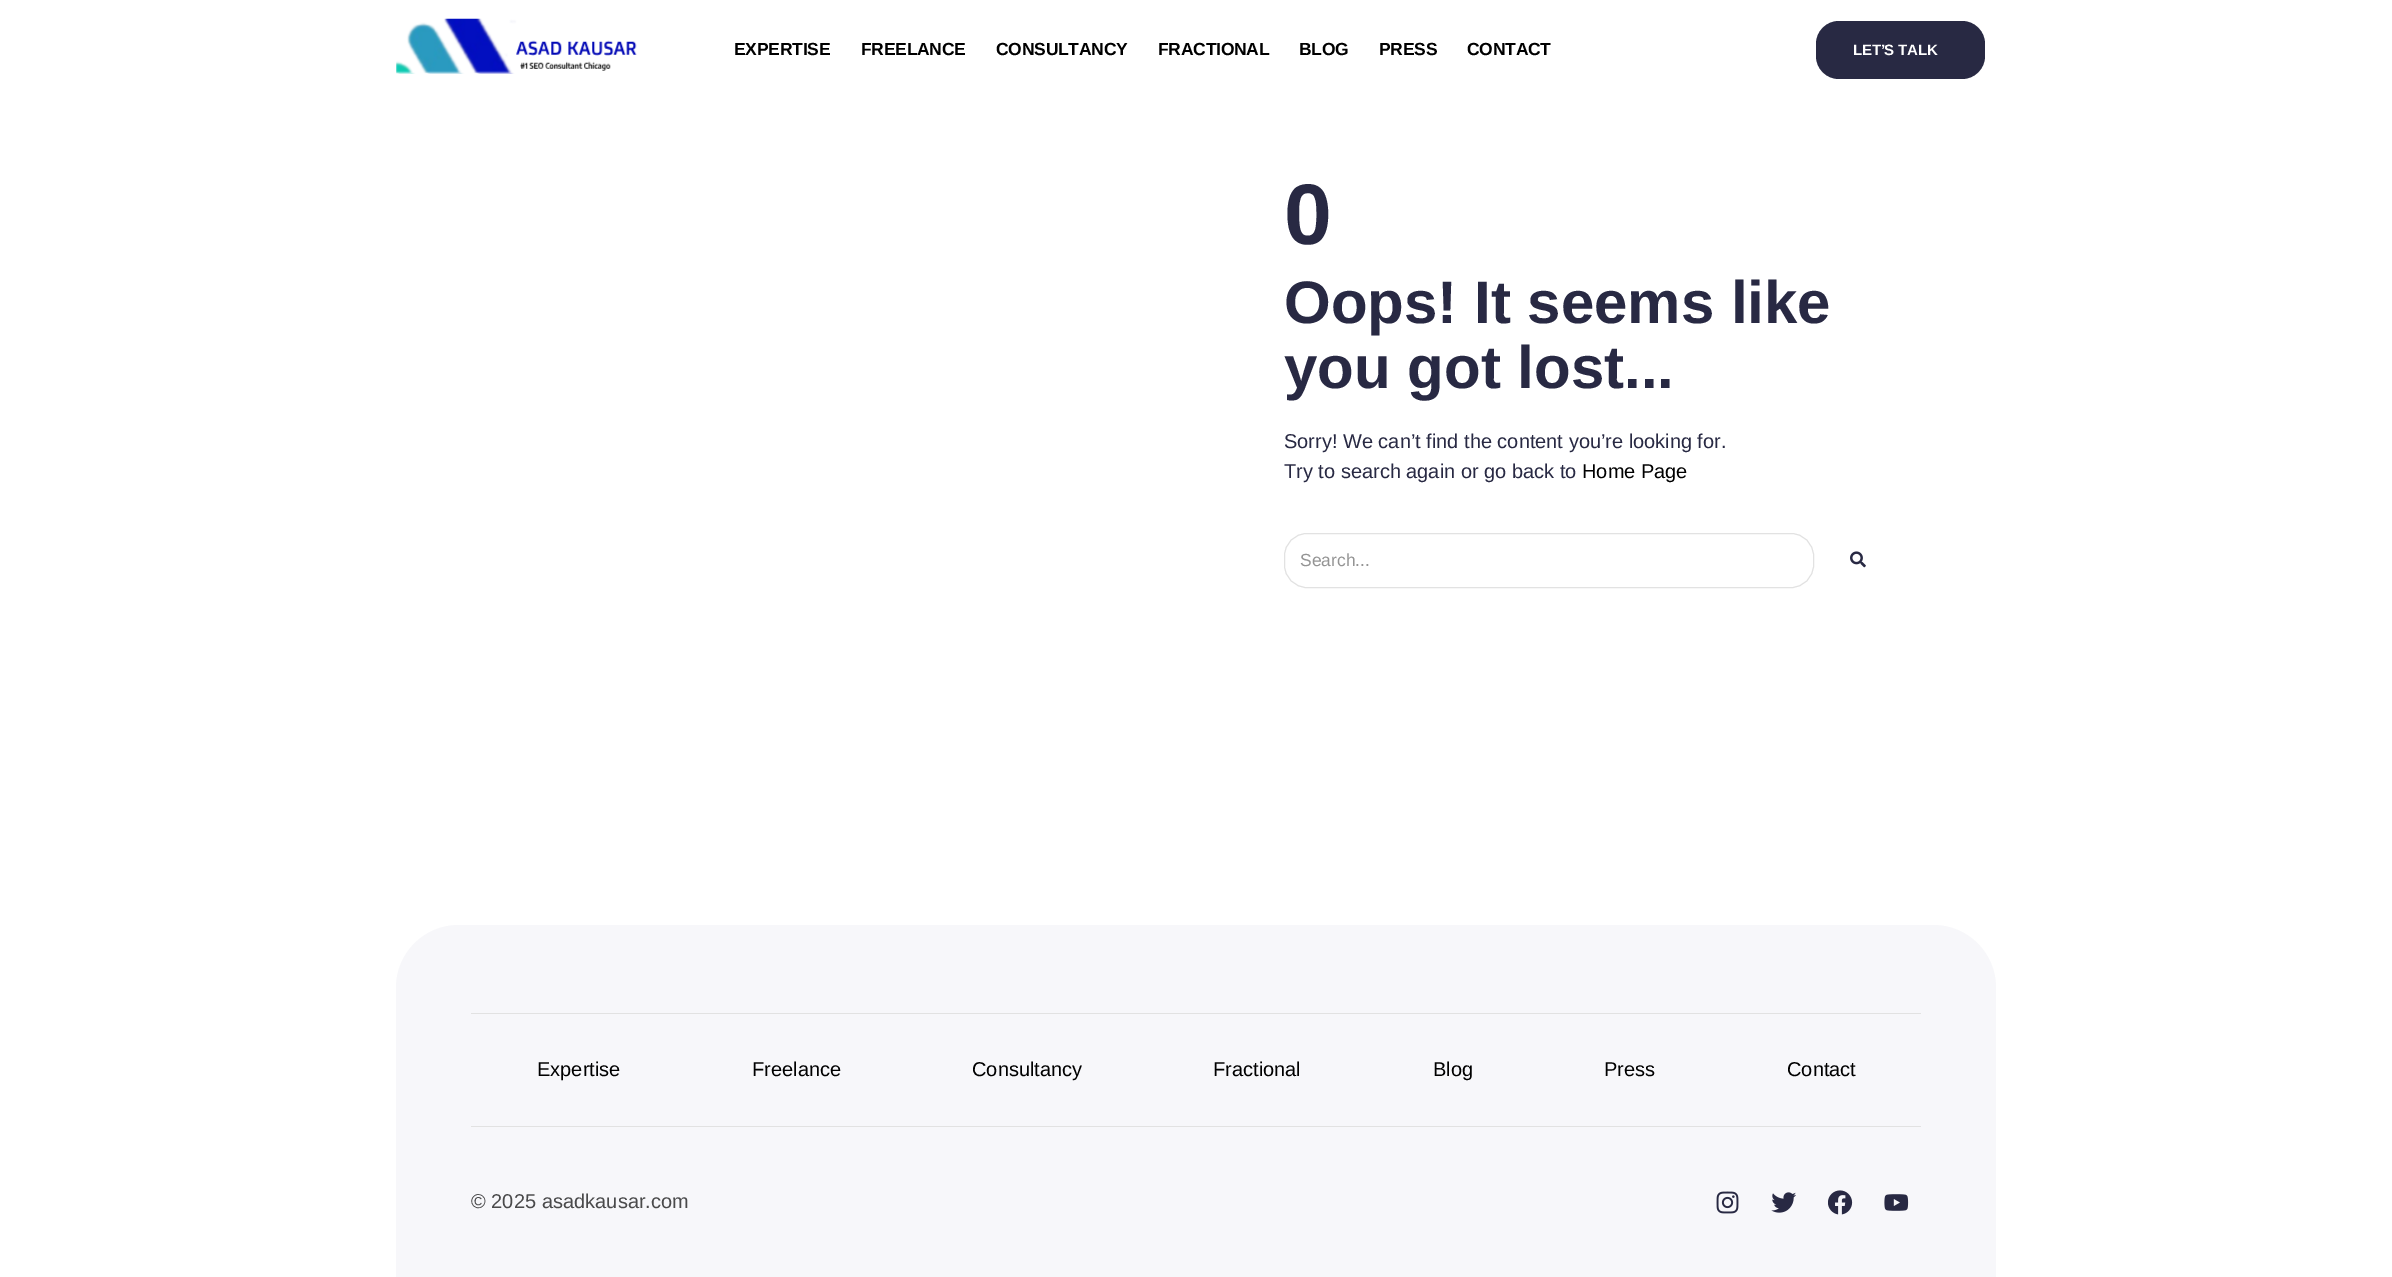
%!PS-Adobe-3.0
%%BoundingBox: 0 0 2392 1277
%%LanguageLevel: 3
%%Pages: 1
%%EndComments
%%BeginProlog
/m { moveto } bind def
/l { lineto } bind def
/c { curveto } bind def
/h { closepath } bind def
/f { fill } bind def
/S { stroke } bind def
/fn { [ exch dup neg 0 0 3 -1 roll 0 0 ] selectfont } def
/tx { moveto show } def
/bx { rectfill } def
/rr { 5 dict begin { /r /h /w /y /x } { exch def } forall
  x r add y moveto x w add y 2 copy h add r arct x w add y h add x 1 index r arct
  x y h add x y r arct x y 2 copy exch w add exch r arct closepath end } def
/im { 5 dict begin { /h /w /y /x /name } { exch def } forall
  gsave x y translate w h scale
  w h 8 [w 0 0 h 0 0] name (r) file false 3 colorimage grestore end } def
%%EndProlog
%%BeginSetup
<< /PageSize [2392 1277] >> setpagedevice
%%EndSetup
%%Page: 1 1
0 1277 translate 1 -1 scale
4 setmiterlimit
1 setgray
0 0 2392 1277 bx
(image0.raw) 396 18 241 56 im
/LiberationSans-Bold 17.5 fn
0 setgray
734 55 m -0.25 0 (EXPERTISE) ashow
861 55 m -0.25 0 (FREELANCE) ashow
996 55 m -0.25 0 (CONSULTANCY) ashow
1158 55 m -0.25 0 (FRACTIONAL) ashow
1299 55 m -0.25 0 (BLOG) ashow
1379 55 m -0.25 0 (PRESS) ashow
1467 55 m -0.25 0 (CONTACT) ashow
0.157 0.161 0.263 setrgbcolor
1816 21 169 58 23 rr f
/LiberationSans-Bold 15 fn
1 setgray
1853 55 m -0.25 0 (LET’S TALK) ashow
/LiberationSans-Bold 86 fn
0.157 0.161 0.263 setrgbcolor
(0) 1284 244 tx
/LiberationSans-Bold 60 fn
(Oops! It seems like) 1284 323 tx
(you got lost...) 1284 388 tx
/LiberationSans-Regular 20 fn
(Sorry! We can’t find the content you’re looking for.) 1284 448 tx
(Try to search again or go back to) 1284 478 tx
0 setgray
(Home Page) 1582 478 tx
0.886 setgray
1284.5 533.5 529 54 22.5 rr S
/LiberationSans-Regular 17.5 fn
0.58 setgray
(Search...) 1300 566 tx
(image1.raw) 1850 551 16 17 im
0.969 0.969 0.98 setrgbcolor
459 925 m 1933 925 l 1968 925 1996 953 1996 988 c 1996 1178 l 396 1178 l 396 988 l 396 953 424 925 459 925 c h f
0.886 setgray
471 1013 1450 1 bx
471 1126 1450 1 bx
/LiberationSans-Regular 20 fn
0 setgray
(Expertise) 537 1076 tx
(Freelance) 752 1076 tx
(Consultancy) 972 1076 tx
(Fractional) 1213 1076 tx
(Blog) 1433 1076 tx
(Press) 1604 1076 tx
(Contact) 1787 1076 tx
0.969 0.969 0.98 setrgbcolor
396 1178 1600 99 bx
0.29 0.29 0.294 setrgbcolor
(© 2025) 471 1208 tx
(asadkausar.com) 542 1208 tx
(image2.raw) 1716 1191 23 23 im
(image3.raw) 1771 1192 25 21 im
(image4.raw) 1828 1190 25 25 im
(image5.raw) 1884 1194 25 17 im
showpage
%%EOF
